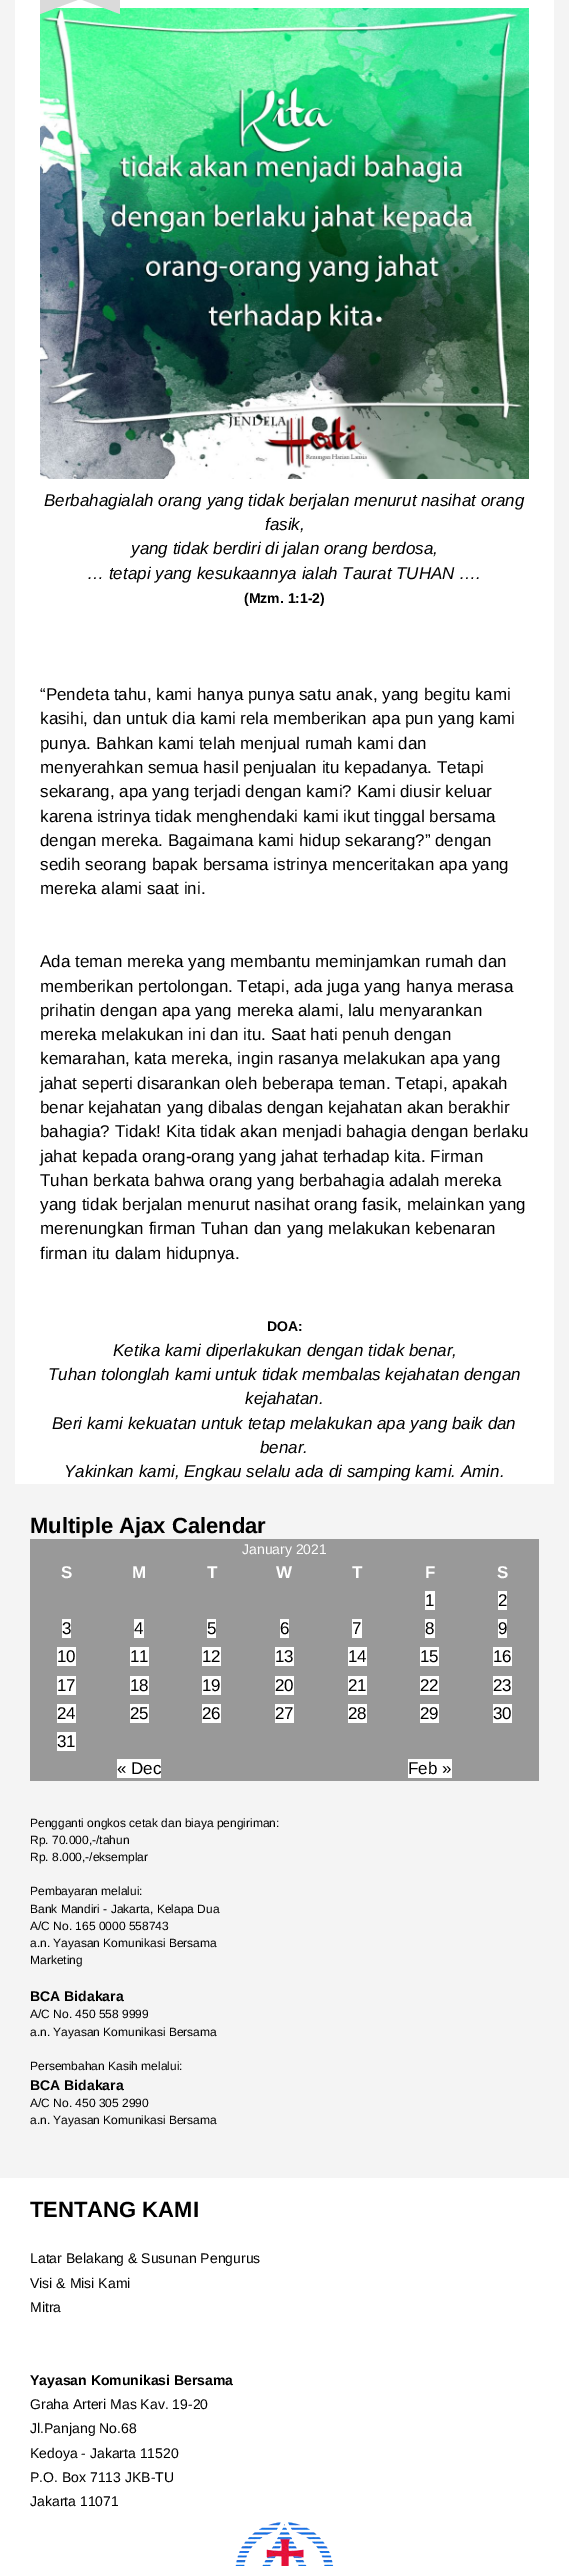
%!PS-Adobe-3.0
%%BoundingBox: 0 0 569 2566
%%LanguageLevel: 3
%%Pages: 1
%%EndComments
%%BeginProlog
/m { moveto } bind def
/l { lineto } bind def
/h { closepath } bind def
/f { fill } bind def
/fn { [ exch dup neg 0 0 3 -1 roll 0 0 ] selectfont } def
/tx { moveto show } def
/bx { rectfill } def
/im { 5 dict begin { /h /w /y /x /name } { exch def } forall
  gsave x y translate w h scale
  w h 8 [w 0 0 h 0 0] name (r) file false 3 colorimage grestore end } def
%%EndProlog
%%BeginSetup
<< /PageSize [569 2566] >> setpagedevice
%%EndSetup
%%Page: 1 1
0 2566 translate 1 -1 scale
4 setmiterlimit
0.957 setgray
0 0 569 2566 bx
1 setgray
15 0 539 1484 bx
(image0.raw) 40 8 489 471 im
0.855 setgray
120 -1 m 120 14 l 80 -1 l h f
40 14 m 40 -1 l 80 -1 l h f
/LiberationSans-Italic 17 fn
0 setgray
(Berbahagialah orang yang tidak berjalan menurut nasihat orang) 44 506 tx
(fasik,) 265 530 tx
(yang tidak berdiri di jalan orang berdosa,) 131 554 tx
(… tetapi yang kesukaannya ialah Taurat TUHAN ….) 87 579 tx
/LiberationSans-Bold 14 fn
(\(Mzm. 1:1-2\)) 244 603 tx
/LiberationSans-Regular 17 fn
(“Pendeta tahu, kami hanya punya satu anak, yang begitu kami) 40 700 tx
(kasihi, dan untuk dia kami rela memberikan apa pun yang kami) 40 724 tx
(punya. Bahkan kami telah menjual rumah kami dan) 40 749 tx
(menyerahkan semua hasil penjualan itu kepadanya. Tetapi) 40 773 tx
(sekarang, apa yang terjadi dengan kami? Kami diusir keluar) 40 797 tx
(karena istrinya tidak menghendaki kami ikut tinggal bersama) 40 822 tx
(dengan mereka. Bagaimana kami hidup sekarang?” dengan) 40 846 tx
(sedih seorang bapak bersama istrinya menceritakan apa yang) 40 870 tx
(mereka alami saat ini.) 40 894 tx
(Ada teman mereka yang membantu meminjamkan rumah dan) 40 967 tx
(memberikan pertolongan. Tetapi, ada juga yang hanya merasa) 40 992 tx
(prihatin dengan apa yang mereka alami, lalu menyarankan) 40 1016 tx
(mereka melakukan ini dan itu. Saat hati penuh dengan) 40 1040 tx
(kemarahan, kata mereka, ingin rasanya melakukan apa yang) 40 1064 tx
(jahat seperti disarankan oleh beberapa teman. Tetapi, apakah) 40 1089 tx
(benar kejahatan yang dibalas dengan kejahatan akan berakhir) 40 1113 tx
(bahagia? Tidak! Kita tidak akan menjadi bahagia dengan berlaku) 40 1137 tx
(jahat kepada orang-orang yang jahat terhadap kita. Firman) 40 1162 tx
(Tuhan berkata bahwa orang yang berbahagia adalah mereka) 40 1186 tx
(yang tidak berjalan menurut nasihat orang fasik, melainkan yang) 40 1210 tx
(merenungkan firman Tuhan dan yang melakukan kebenaran) 40 1234 tx
(firman itu dalam hidupnya.) 40 1259 tx
/LiberationSans-Bold 14 fn
(DOA:) 267 1331 tx
/LiberationSans-Italic 17 fn
(Ketika kami diperlakukan dengan tidak benar,) 113 1356 tx
(Tuhan tolonglah kami untuk tidak membalas kejahatan dengan) 48 1380 tx
(kejahatan.) 245 1404 tx
(Beri kami kekuatan untuk tetap melakukan apa yang baik dan) 52 1429 tx
(benar.) 260 1453 tx
(Yakinkan kami, Engkau selalu ada di samping kami. Amin.) 64 1477 tx
/LiberationSans-Bold 22 fn
(Multiple Ajax Calendar) 30 1533 tx
0.6 setgray
30 1539 509 242 bx
/LiberationSans-Regular 14 fn
1 setgray
(January 2021) 242 1554 tx
/LiberationSans-Bold 17 fn
(S) 61 1578 tx
(M) 132 1578 tx
(T) 207 1578 tx
(W) 276 1578 tx
(T) 352 1578 tx
(F) 425 1578 tx
(S) 497 1578 tx
425 1591 10 19 bx
/LiberationSans-Regular 17 fn
0 setgray
(1) 425 1606 tx
1 setgray
498 1591 9 19 bx
0 setgray
(2) 498 1606 tx
1 setgray
62 1619 9 19 bx
0 setgray
(3) 62 1634 tx
1 setgray
134 1619 10 19 bx
0 setgray
(4) 134 1634 tx
1 setgray
207 1619 9 19 bx
0 setgray
(5) 207 1634 tx
1 setgray
280 1619 9 19 bx
0 setgray
(6) 280 1634 tx
1 setgray
352 1619 10 19 bx
0 setgray
(7) 352 1634 tx
1 setgray
425 1619 10 19 bx
0 setgray
(8) 425 1634 tx
1 setgray
498 1619 9 19 bx
0 setgray
(9) 498 1634 tx
1 setgray
57 1647 19 19 bx
0 setgray
(10) 57 1662 tx
1 setgray
130 1647 19 19 bx
0 setgray
(11) 130 1662 tx
1 setgray
202 1647 19 19 bx
0 setgray
(12) 202 1662 tx
1 setgray
275 1647 19 19 bx
0 setgray
(13) 275 1662 tx
1 setgray
348 1647 19 19 bx
0 setgray
(14) 348 1662 tx
1 setgray
420 1647 19 19 bx
0 setgray
(15) 420 1662 tx
1 setgray
493 1647 19 19 bx
0 setgray
(16) 493 1662 tx
1 setgray
57 1676 19 19 bx
0 setgray
(17) 57 1691 tx
1 setgray
130 1676 19 19 bx
0 setgray
(18) 130 1691 tx
1 setgray
202 1676 19 19 bx
0 setgray
(19) 202 1691 tx
1 setgray
275 1676 19 19 bx
0 setgray
(20) 275 1691 tx
1 setgray
348 1676 19 19 bx
0 setgray
(21) 348 1691 tx
1 setgray
420 1676 19 19 bx
0 setgray
(22) 420 1691 tx
1 setgray
493 1676 19 19 bx
0 setgray
(23) 493 1691 tx
1 setgray
57 1704 19 19 bx
0 setgray
(24) 57 1719 tx
1 setgray
130 1704 19 19 bx
0 setgray
(25) 130 1719 tx
1 setgray
202 1704 19 19 bx
0 setgray
(26) 202 1719 tx
1 setgray
275 1704 19 19 bx
0 setgray
(27) 275 1719 tx
1 setgray
348 1704 19 19 bx
0 setgray
(28) 348 1719 tx
1 setgray
420 1704 19 19 bx
0 setgray
(29) 420 1719 tx
1 setgray
493 1704 19 19 bx
0 setgray
(30) 493 1719 tx
1 setgray
57 1732 19 19 bx
0 setgray
(31) 57 1747 tx
1 setgray
117 1759 44 19 bx
0 setgray
(« Dec) 117 1774 tx
1 setgray
408 1759 44 19 bx
0 setgray
(Feb ») 408 1774 tx
/LiberationSans-Regular 12 fn
(Pengganti ongkos cetak dan biaya pengiriman:) 30 1827 tx
(Rp. 70.000,-/tahun) 30 1844 tx
(Rp. 8.000,-/eksemplar) 30 1861 tx
(Pembayaran melalui:) 30 1895 tx
(Bank Mandiri - Jakarta, Kelapa Dua) 30 1913 tx
(A/C No. 165 0000 558743) 30 1930 tx
(a.n. Yayasan Komunikasi Bersama) 30 1947 tx
(Marketing) 30 1964 tx
/LiberationSans-Bold 14 fn
(BCA Bidakara) 30 2001 tx
/LiberationSans-Regular 12 fn
(A/C No. 450 558 9999) 30 2018 tx
(a.n. Yayasan Komunikasi Bersama) 30 2036 tx
(Persembahan Kasih melalui:) 30 2070 tx
/LiberationSans-Bold 14 fn
(BCA Bidakara) 30 2090 tx
/LiberationSans-Regular 12 fn
(A/C No. 450 305 2990) 30 2107 tx
(a.n. Yayasan Komunikasi Bersama) 30 2124 tx
1 setgray
0 2178 569 388 bx
/LiberationSans-Bold 22 fn
0 setgray
(TENTANG KAMI) 30 2217 tx
/LiberationSans-Regular 14 fn
(Latar Belakang & Susunan Pengurus) 30 2263 tx
(Visi & Misi Kami) 30 2288 tx
(Mitra) 30 2312 tx
/LiberationSans-Bold 14 fn
(Yayasan Komunikasi Bersama) 30 2385 tx
/LiberationSans-Regular 14 fn
(Graha Arteri Mas Kav. 19-20) 30 2409 tx
(Jl.Panjang No.68) 30 2433 tx
(Kedoya - Jakarta 11520) 30 2458 tx
(P.O. Box 7113 JKB-TU) 30 2482 tx
(Jakarta 11071) 30 2506 tx
(image1.raw) 235 2522 99 44 im
showpage
%%EOF
